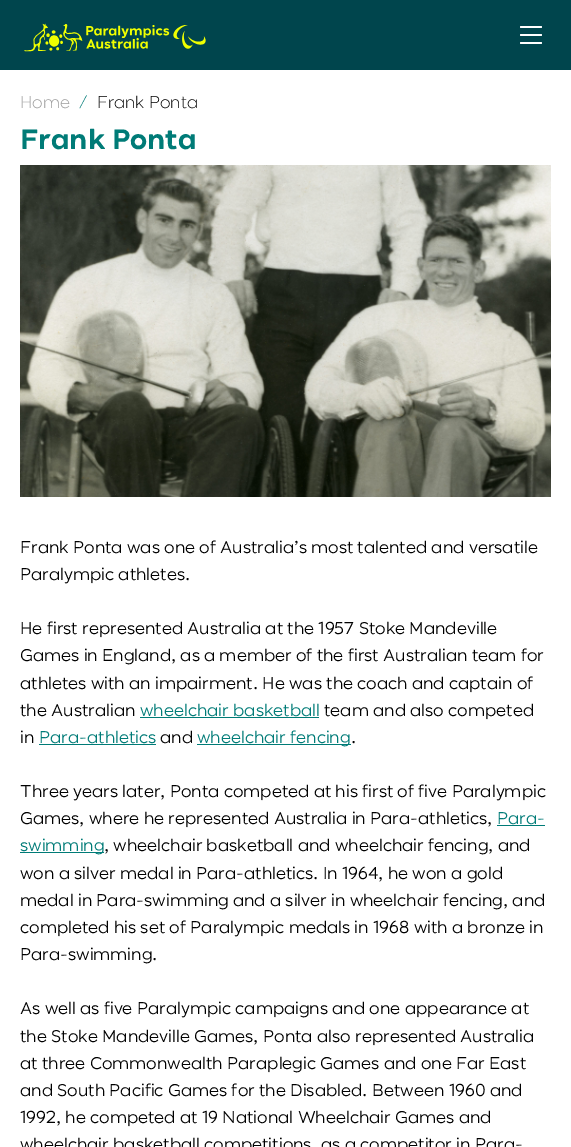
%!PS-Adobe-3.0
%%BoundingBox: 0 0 571 1147
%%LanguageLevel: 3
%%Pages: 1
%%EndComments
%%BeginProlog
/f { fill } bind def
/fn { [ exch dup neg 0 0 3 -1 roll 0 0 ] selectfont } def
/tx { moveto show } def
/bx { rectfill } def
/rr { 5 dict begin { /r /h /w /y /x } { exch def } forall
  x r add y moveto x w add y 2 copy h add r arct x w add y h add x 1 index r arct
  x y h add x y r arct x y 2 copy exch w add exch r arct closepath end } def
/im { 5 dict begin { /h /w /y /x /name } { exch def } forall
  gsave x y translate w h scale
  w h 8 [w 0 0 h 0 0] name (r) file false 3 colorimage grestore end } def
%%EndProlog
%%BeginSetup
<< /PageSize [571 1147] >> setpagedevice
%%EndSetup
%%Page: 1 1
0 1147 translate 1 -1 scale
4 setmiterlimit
1 setgray
0 0 571 1147 bx
0 0.271 0.302 setrgbcolor
0 0 571 70 bx
(image0.raw) 24 23 182 29 im
1 setgray
520 26 22 2 1 rr f
520 34 22 2 1 rr f
520 42 22 2 1 rr f
/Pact-Light 17 fn
0.608 setgray
(Home) 20 108 tx
0 0.482 0.467 setrgbcolor
(/) 79 108 tx
0 setgray
(Frank Ponta) 97 108 tx
/Pact-Bold 28 fn
0 0.482 0.467 setrgbcolor
(Frank Ponta) 20 149 tx
(image1.raw) 20 165 531 332 im
/Pact-Regular 17 fn
0 setgray
(Frank Ponta was one of Australia’s most talented and versatile) 20 553 tx
(Paralympic athletes.) 20 580 tx
(He first represented Australia at the 1957 Stoke Mandeville) 20 634 tx
(Games in England, as a member of the first Australian team for) 20 661 tx
(athletes with an impairment. He was the coach and captain of) 20 689 tx
(the Australian) 20 716 tx
0 0.482 0.467 setrgbcolor
(wheelchair basketball) 140 716 tx
140 717 179 1 bx
0 setgray
(team and also competed) 324 716 tx
(in) 20 743 tx
0 0.482 0.467 setrgbcolor
(Para-athletics) 39 743 tx
39 744 117 1 bx
0 setgray
(and) 160 743 tx
0 0.482 0.467 setrgbcolor
197 744 154 1 bx
(wheelchair fencing) 197 743 tx
0 setgray
(.) 351 743 tx
(Three years later, Ponta competed at his first of five Paralympic) 20 797 tx
(Games, where he represented Australia in Para-athletics,) 20 824 tx
0 0.482 0.467 setrgbcolor
(Para-) 497 824 tx
497 825 48 1 bx
20 852 84 1 bx
(swimming) 20 851 tx
0 setgray
(, wheelchair basketball and wheelchair fencing, and) 104 851 tx
(won a silver medal in Para-athletics. In 1964, he won a gold) 20 879 tx
(medal in Para-swimming and a silver in wheelchair fencing, and) 20 906 tx
(completed his set of Paralympic medals in 1968 with a bronze in) 20 933 tx
(Para-swimming.) 20 960 tx
(As well as five Paralympic campaigns and one appearance at) 20 1014 tx
(the Stoke Mandeville Games, Ponta also represented Australia) 20 1042 tx
(at three Commonwealth Paraplegic Games and one Far East) 20 1069 tx
(and South Pacific Games for the Disabled. Between 1960 and) 20 1096 tx
(1992, he competed at 19 National Wheelchair Games and) 20 1123 tx
(wheelchair basketball competitions, as a competitor in Para-) 20 1150 tx
showpage
%%EOF
